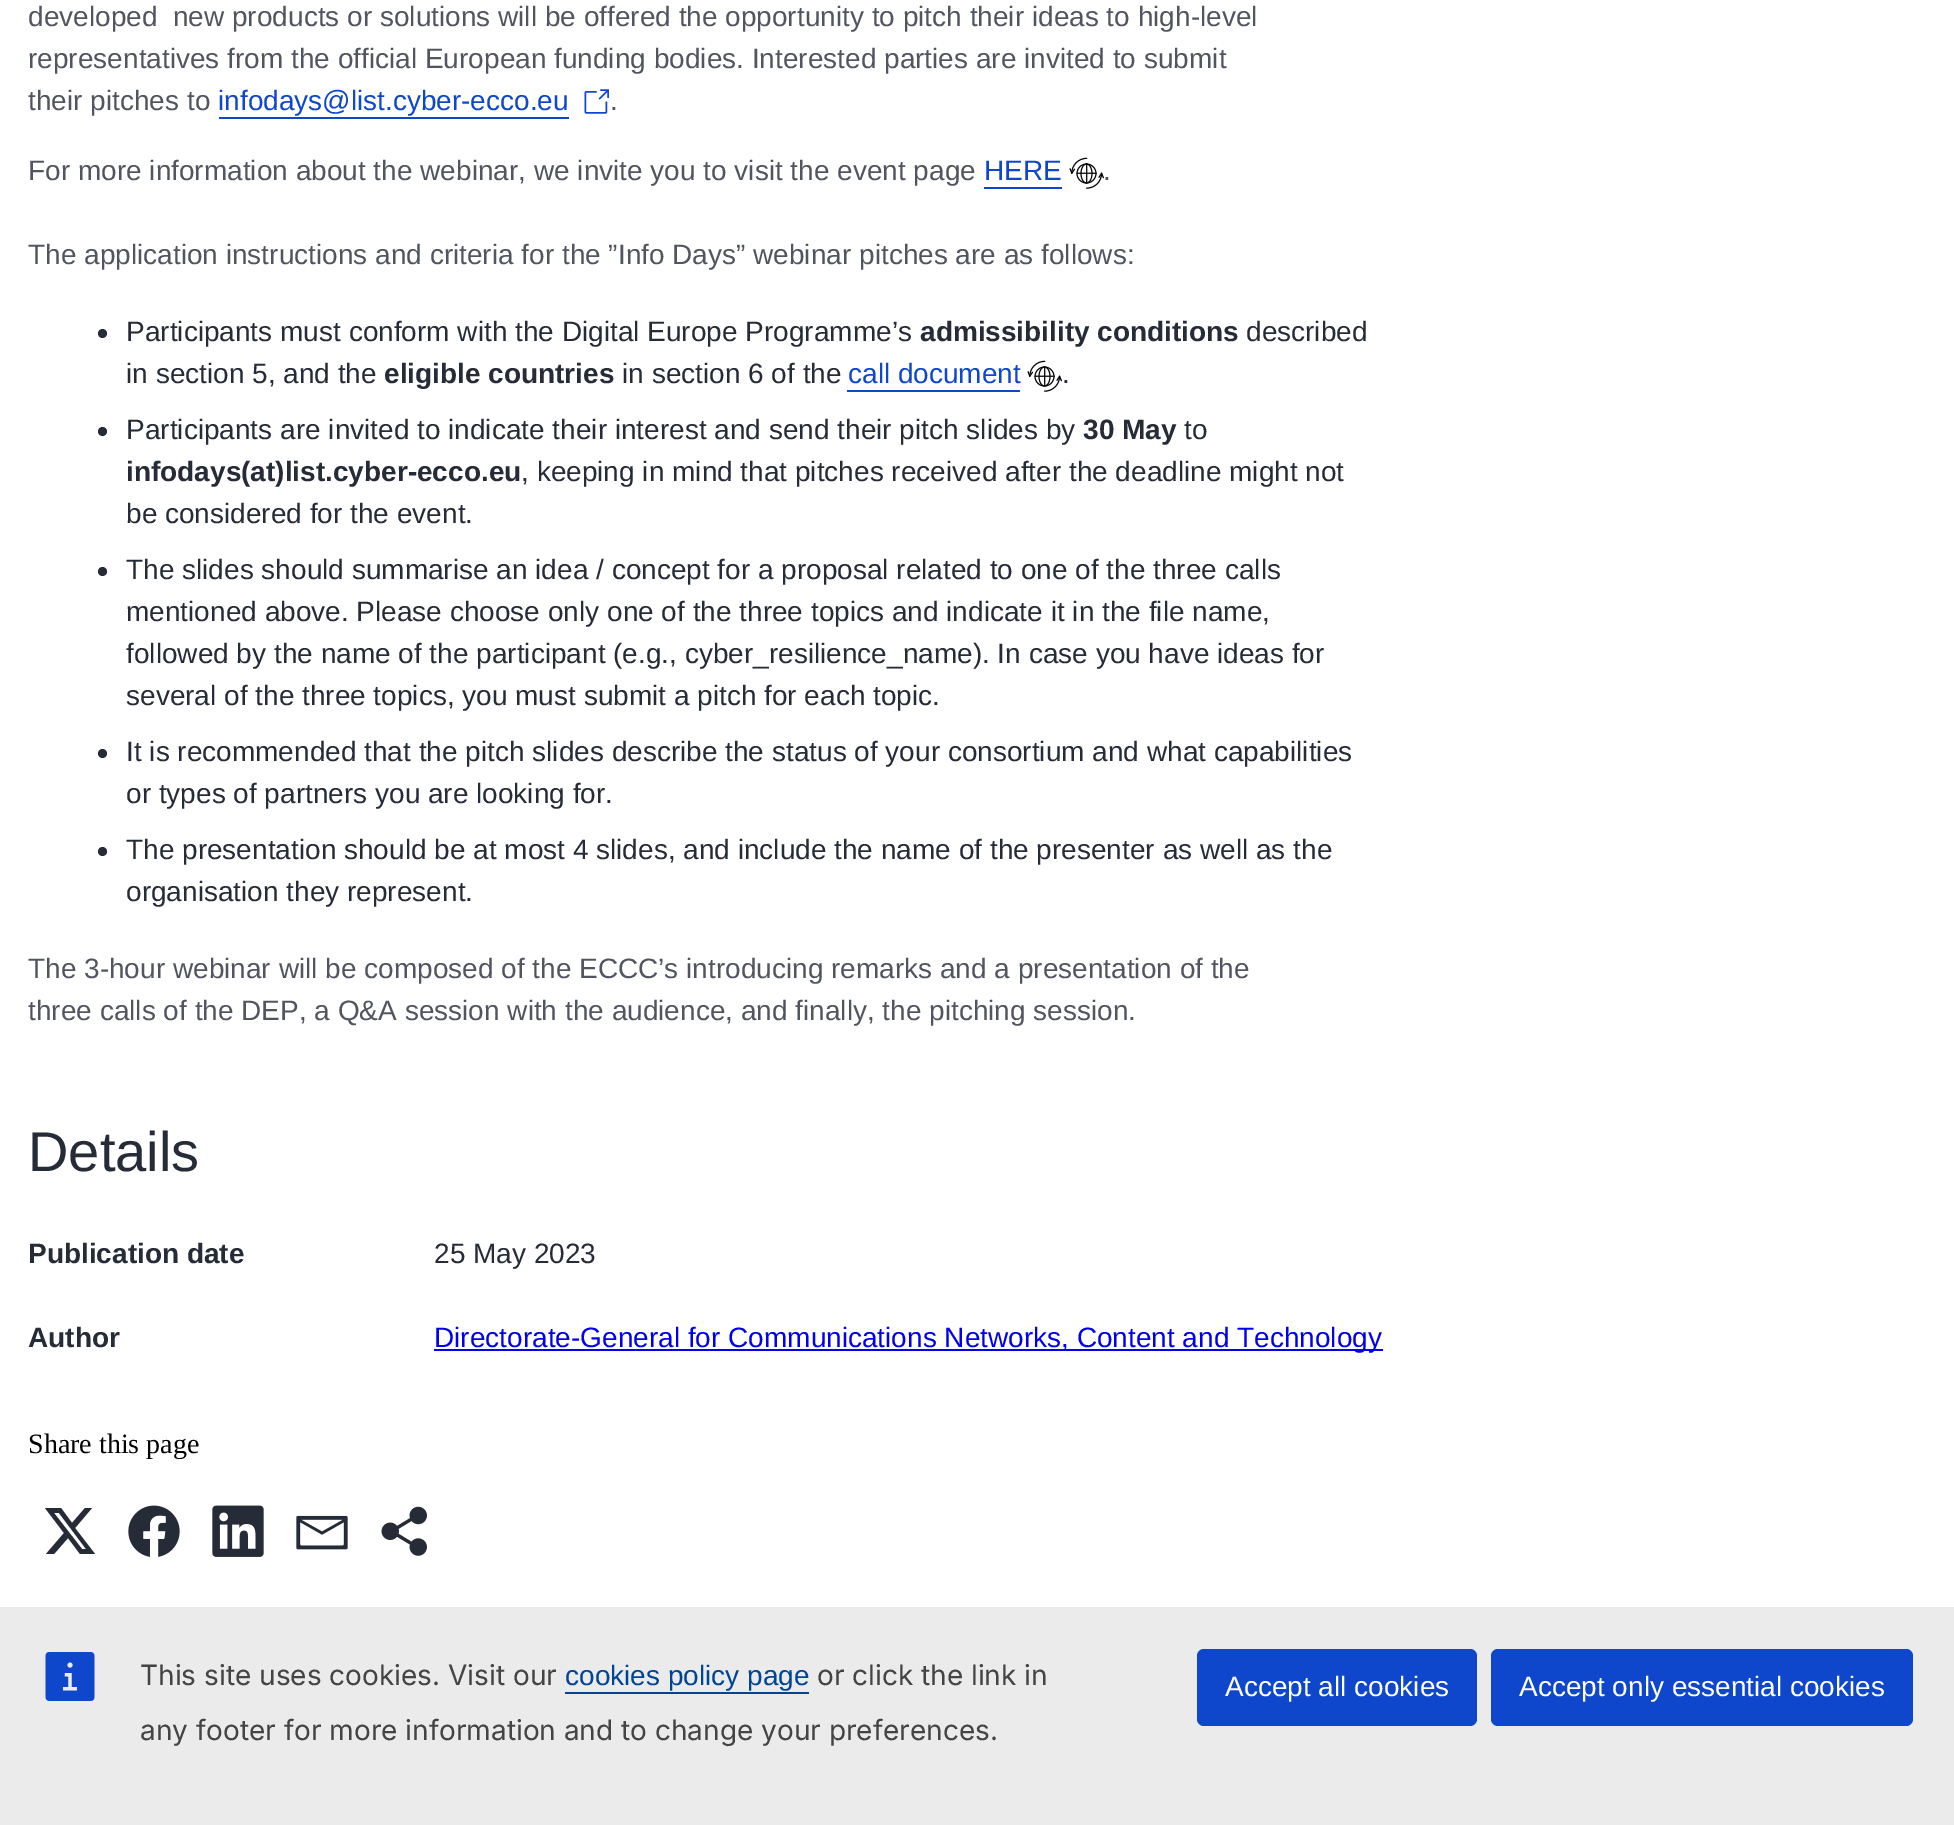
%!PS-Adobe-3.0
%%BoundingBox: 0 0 1954 1825
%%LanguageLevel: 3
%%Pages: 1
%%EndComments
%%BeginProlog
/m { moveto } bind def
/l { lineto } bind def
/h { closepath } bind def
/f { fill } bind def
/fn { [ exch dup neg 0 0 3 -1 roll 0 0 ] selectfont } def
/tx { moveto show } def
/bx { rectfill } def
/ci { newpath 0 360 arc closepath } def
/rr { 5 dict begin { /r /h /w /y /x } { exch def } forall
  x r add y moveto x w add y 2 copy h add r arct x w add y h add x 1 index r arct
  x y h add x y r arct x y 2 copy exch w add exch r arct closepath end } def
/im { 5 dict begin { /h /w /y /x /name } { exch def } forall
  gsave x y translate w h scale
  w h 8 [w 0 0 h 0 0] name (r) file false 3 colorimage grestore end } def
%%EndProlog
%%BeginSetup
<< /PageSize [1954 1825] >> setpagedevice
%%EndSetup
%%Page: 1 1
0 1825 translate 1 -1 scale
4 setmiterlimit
1 setgray
0 0 1954 1825 bx
/LiberationSans-Regular 28 fn
0.318 0.333 0.376 setrgbcolor
(developed  new products or solutions will be offered the opportunity to pitch their ideas to high-level) 28 26 tx
(representatives from the official European funding bodies. Interested parties are invited to submit) 28 68 tx
(their pitches to) 28 110 tx
0.055 0.278 0.796 setrgbcolor
(infodays@list.cyber-ecco.eu) 218 110 tx
219 117 350 2 bx
(image0.raw) 584 89 25 25 im
0.318 0.333 0.376 setrgbcolor
(.) 610 110 tx
(For more information about the webinar, we invite you to visit the event page) 28 180 tx
0.055 0.278 0.796 setrgbcolor
(HERE) 984 180 tx
984 187 78 2 bx
(image1.raw) 1069 157 35 32 im
0.318 0.333 0.376 setrgbcolor
(.) 1103 180 tx
(The application instructions and criteria for the ”Info Days” webinar pitches are as follows:) 28 264 tx
0.149 0.169 0.22 setrgbcolor
102.5 333.5 4.5 ci f
(Participants must conform with the Digital Europe Programme’s) 126 341 tx
/LiberationSans-Bold 28 fn
(admissibility conditions) 920 341 tx
/LiberationSans-Regular 28 fn
(described) 1246 341 tx
(in section 5, and the) 126 383 tx
/LiberationSans-Bold 28 fn
(eligible countries) 384 383 tx
/LiberationSans-Regular 28 fn
(in section 6 of the) 622 383 tx
0.055 0.278 0.796 setrgbcolor
(call document) 848 383 tx
847 390 173 2 bx
(image1.raw) 1027 360 35 32 im
0.149 0.169 0.22 setrgbcolor
(.) 1062 383 tx
102.5 431.5 4.5 ci f
(Participants are invited to indicate their interest and send their pitch slides by) 126 439 tx
/LiberationSans-Bold 28 fn
(30 May) 1083 439 tx
/LiberationSans-Regular 28 fn
(to) 1184 439 tx
/LiberationSans-Bold 28 fn
(infodays\(at\)list.cyber-ecco.eu) 126 481 tx
/LiberationSans-Regular 28 fn
(, keeping in mind that pitches received after the deadline might not) 521 481 tx
(be considered for the event.) 126 523 tx
102.5 571.5 4.5 ci f
(The slides should summarise an idea / concept for a proposal related to one of the three calls) 126 579 tx
(mentioned above. Please choose only one of the three topics and indicate it in the file name,) 126 621 tx
(followed by the name of the participant \(e.g., cyber_resilience_name\). In case you have ideas for) 126 663 tx
(several of the three topics, you must submit a pitch for each topic.) 126 705 tx
102.5 753.5 4.5 ci f
(It is recommended that the pitch slides describe the status of your consortium and what capabilities) 126 761 tx
(or types of partners you are looking for.) 126 803 tx
102.5 851.5 4.5 ci f
(The presentation should be at most 4 slides, and include the name of the presenter as well as the) 126 859 tx
(organisation they represent.) 126 901 tx
0.318 0.333 0.376 setrgbcolor
(The 3-hour webinar will be composed of the ECCC’s introducing remarks and a presentation of the) 28 978 tx
(three calls of the DEP, a Q&A session with the audience, and finally, the pitching session.) 28 1020 tx
/LiberationSans-Regular 56 fn
0.149 0.169 0.22 setrgbcolor
(Details) 28 1171 tx
/LiberationSans-Bold 28 fn
(Publication date) 28 1263 tx
/LiberationSans-Regular 28 fn
(25 May 2023) 434 1263 tx
/LiberationSans-Bold 28 fn
(Author) 28 1347 tx
0 0 0.933 setrgbcolor
434 1349 949 2 bx
/LiberationSans-Regular 28 fn
(Directorate-General for Communications Networks, Content and Technology) 434 1347 tx
/LiberationSerif-Regular 28 fn
0 setgray
(Share this page) 28 1453 tx
0.149 0.169 0.22 setrgbcolor
85 1508 m 92 1508 l 75 1528 l 95 1554 l 80 1554 l 68 1538 l 54 1554 l 46 1554 l 64 1533 l 45 1508 l 61 1508 l 72 1523 l h 82 1549 m 86 1549 l 59 1513 l 54 1513 l h f
(image2.raw) 128 1505 52 52 im
(image3.raw) 212 1505 52 52 im
(image4.raw) 296 1515 52 35 im
(image5.raw) 381 1506 46 50 im
0.922 setgray
0 1607 1954 218 bx
(image6.raw) 45 1652 50 49 im
/Inter-Regular 28 fn
0.267 setgray
(This site uses cookies. Visit our) 140 1685 tx
/LiberationSans-Regular 28 fn
0 0.267 0.58 setrgbcolor
(cookies policy page) 565 1685 tx
565 1692 244 2 bx
/Inter-Regular 28 fn
0.267 setgray
(or click the link in) 817 1685 tx
(any footer for more information and to change your preferences.) 140 1740 tx
0.055 0.278 0.796 setrgbcolor
1197 1649 280 77 7 rr f
/LiberationSans-Regular 28 fn
1 setgray
(Accept all cookies) 1225 1696 tx
0.055 0.278 0.796 setrgbcolor
1491 1649 422 77 7 rr f
1 setgray
(Accept only essential cookies) 1519 1696 tx
showpage
%%EOF
